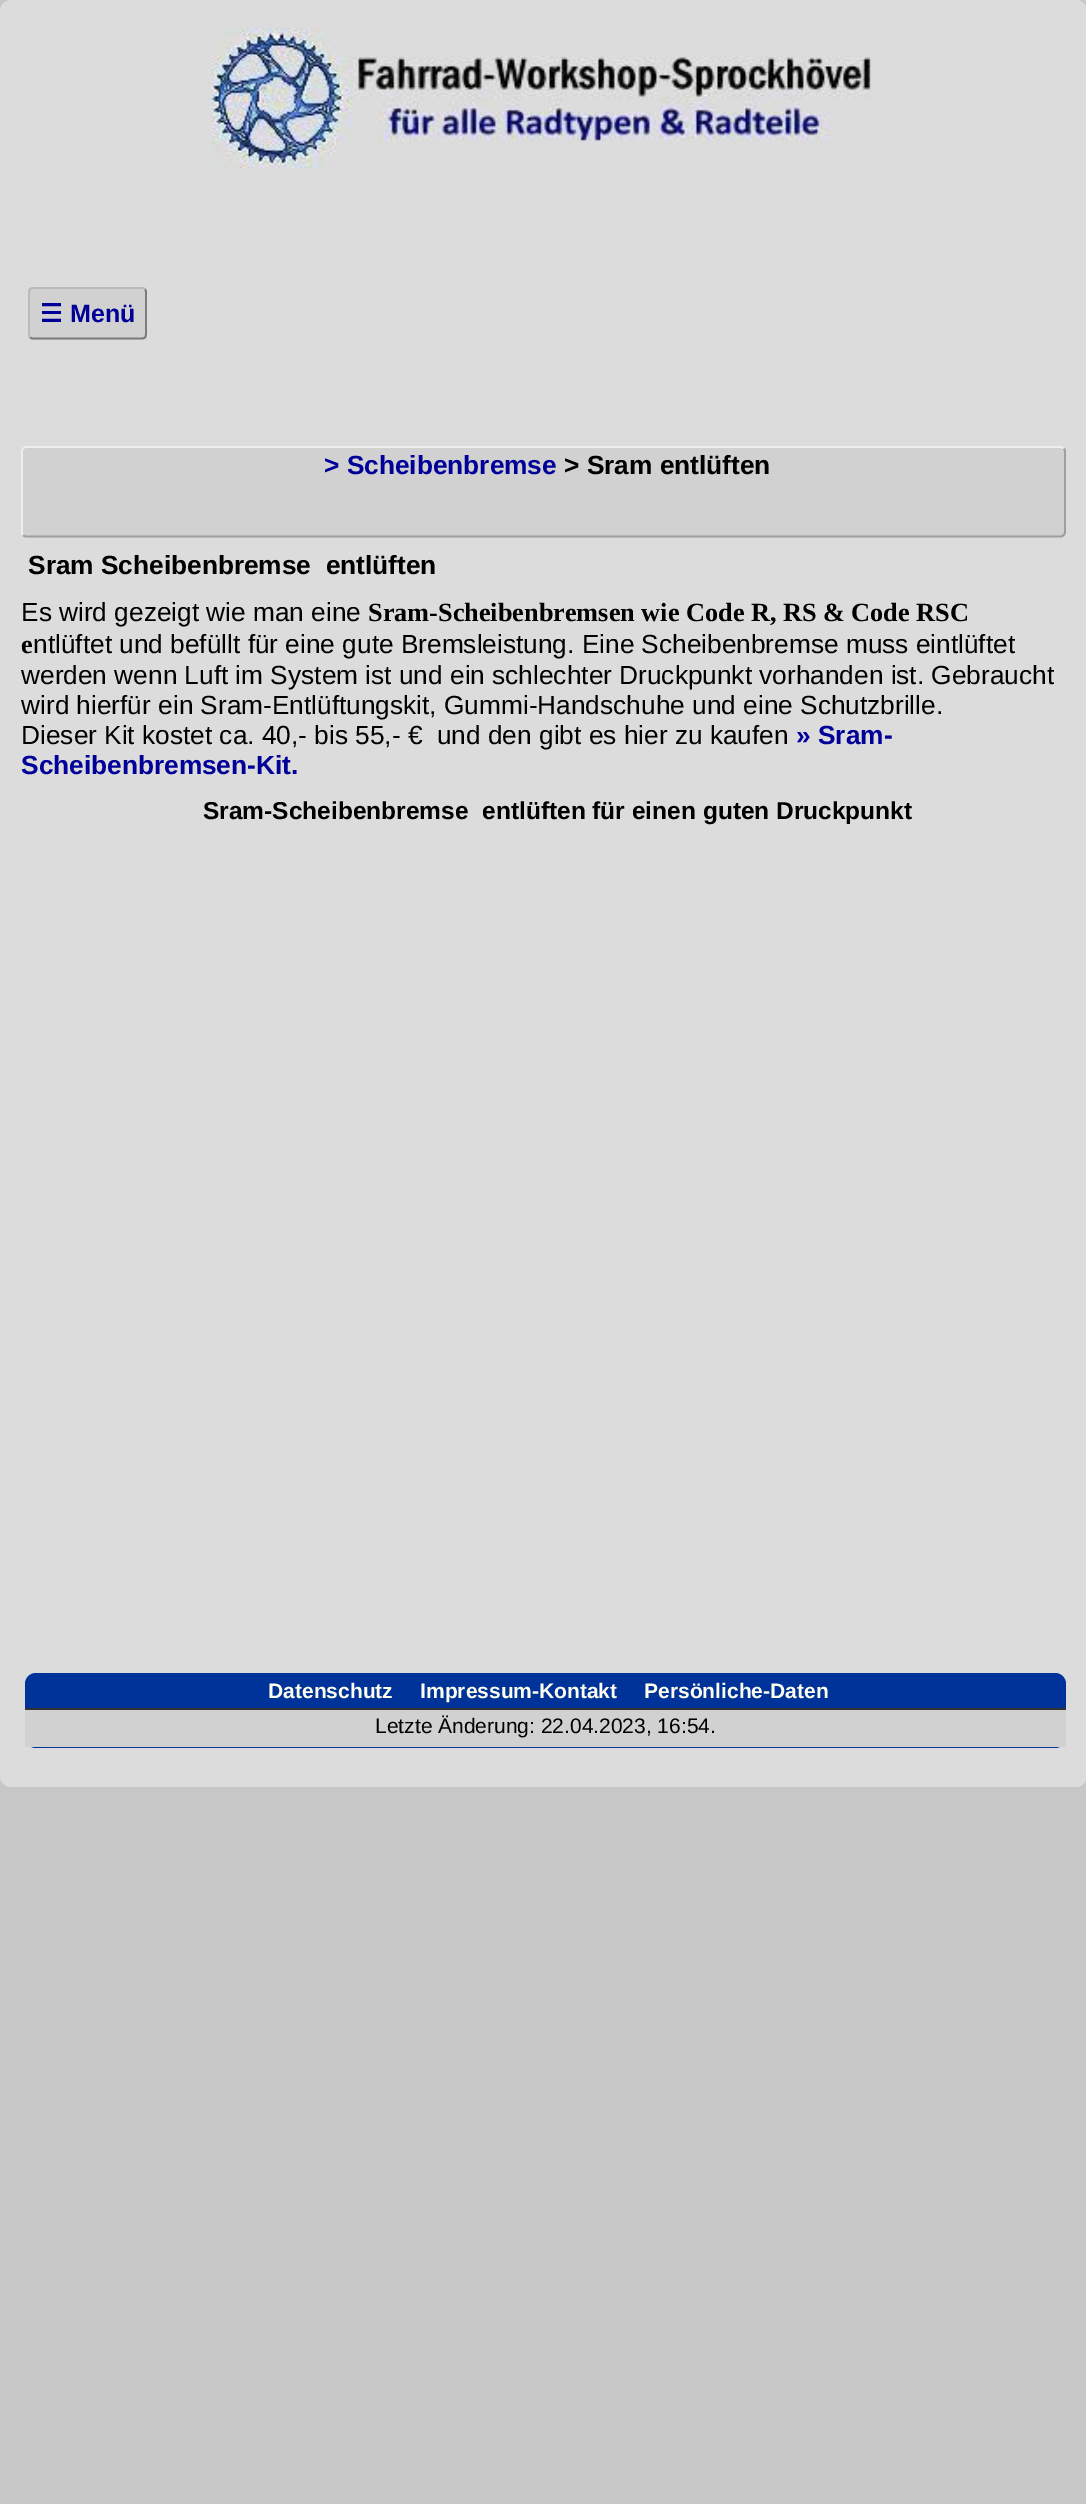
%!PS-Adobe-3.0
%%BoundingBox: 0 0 1086 2504
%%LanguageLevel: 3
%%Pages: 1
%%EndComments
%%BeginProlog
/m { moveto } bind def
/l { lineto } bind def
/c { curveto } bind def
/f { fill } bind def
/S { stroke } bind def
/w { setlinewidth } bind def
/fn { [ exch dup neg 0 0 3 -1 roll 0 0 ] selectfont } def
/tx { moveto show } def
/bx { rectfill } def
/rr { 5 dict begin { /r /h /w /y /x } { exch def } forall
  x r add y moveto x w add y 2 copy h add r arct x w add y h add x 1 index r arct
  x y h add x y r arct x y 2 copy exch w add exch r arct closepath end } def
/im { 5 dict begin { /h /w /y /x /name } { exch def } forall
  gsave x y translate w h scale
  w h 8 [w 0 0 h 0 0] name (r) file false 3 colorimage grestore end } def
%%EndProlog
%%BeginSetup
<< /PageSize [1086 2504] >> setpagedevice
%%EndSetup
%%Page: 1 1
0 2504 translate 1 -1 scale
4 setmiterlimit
0.78 setgray
0 0 1086 2504 bx
0.863 setgray
0 0 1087 1787 11 rr f
(image0.raw) 211 28 660 140 im
0.82 setgray
28 287 119 53 5 rr f
0.49 setgray
1.8 w
145 289 m 145.5 290 146 291 146 292 c 146 334 l 146 335.5 145.5 336.5 145 337.5 c 144 338 143 338.5 142 338.5 c 33 338.5 l 32 338.5 31 338 30 337.5 c S
0.733 setgray
30 337.5 m 29.5 336.5 29 335.5 29 334 c 29 292 l 29 291 29.5 290 30 289 c 31 288.5 32 288 33 288 c 142 288 l 143 288 144 288.5 145 289 c S
/DejaVuSans-Bold 25 fn
0 0 0.6 setrgbcolor
(☰) 40 322 tx
/LiberationSans-Bold 25 fn
(Menü) 70 322 tx
0.82 setgray
21 446 1045 91 5 rr f
0.624 setgray
1063.5 448.5 m 1064.5 449 1065 450.5 1065 451.5 c 1065 532 l 1065 533 1064.5 534.5 1063.5 535 c 1063 536 1061.5 536.5 1060.5 536.5 c 26 536.5 l 25 536.5 24 536 23 535 c S
0.933 setgray
23 535 m 22.5 534.5 22 533 22 532 c 22 451.5 l 22 450.5 22.5 449 23 448.5 c 24 447.5 25 447 26 447 c 1060.5 447 l 1061.5 447 1063 447.5 1063.5 448.5 c S
/LiberationSans-Bold 26.25 fn
0 0 0.6 setrgbcolor
(> Scheibenbremse) 324 474 tx
0 setgray
(> Sram entlüften) 564 474 tx
(Sram Scheibenbremse  entlüften) 28 574 tx
/LiberationSans-Regular 26.25 fn
(Es wird gezeigt wie man eine) 21 621 tx
/LiberationSerif-Bold 26.25 fn
(Sram-Scheibenbremsen wie Code R, RS & Code RSC) 368 621 tx
(e) 21 653 tx
/LiberationSans-Regular 26.25 fn
(ntlüftet und befüllt für eine gute Bremsleistung. Eine Scheibenbremse muss eintlüftet) 33 653 tx
(werden wenn Luft im System ist und ein schlechter Druckpunkt vorhanden ist. Gebraucht) 21 684 tx
(wird hierfür ein Sram-Entlüftungskit, Gummi-Handschuhe und eine Schutzbrille.) 21 714 tx
(Dieser Kit kostet ca. 40,- bis 55,- €  und den gibt es hier zu kaufen) 21 744 tx
/LiberationSans-Bold 26.25 fn
0 0 0.6 setrgbcolor
(» Sram-) 796 744 tx
(Scheibenbremsen-Kit.) 21 774 tx
/LiberationSans-Bold 24.5 fn
0 setgray
(Sram-Scheibenbremse  entlüften für einen guten Druckpunkt) 203 819 tx
0 0.2 0.6 setrgbcolor
25 1673 1041 75 11 rr f
/LiberationSans-Bold 21 fn
1 1 0.941 setrgbcolor
(Datenschutz) 268 1698 tx
(Impressum-Kontakt) 420 1698 tx
(Persönliche-Daten) 644 1698 tx
0.82 setgray
25 1710 1041 37 bx
0.2 setgray
25 1708 1041 2 bx
/LiberationSans-Regular 21 fn
0 setgray
(Letzte Änderung: 22.04.2023, 16:54.) 375 1733 tx
showpage
%%EOF
